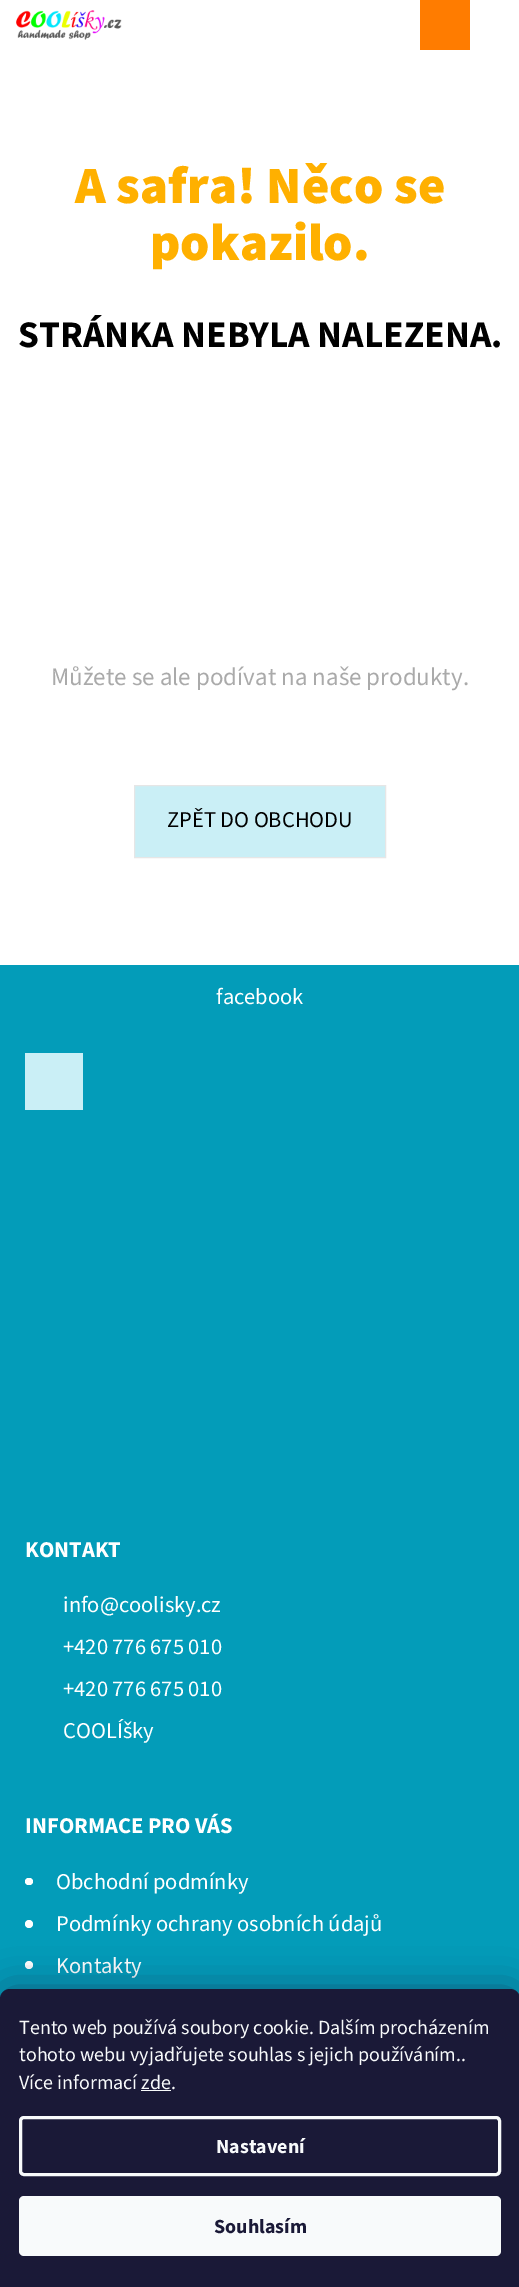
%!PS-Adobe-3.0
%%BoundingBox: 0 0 519 2287
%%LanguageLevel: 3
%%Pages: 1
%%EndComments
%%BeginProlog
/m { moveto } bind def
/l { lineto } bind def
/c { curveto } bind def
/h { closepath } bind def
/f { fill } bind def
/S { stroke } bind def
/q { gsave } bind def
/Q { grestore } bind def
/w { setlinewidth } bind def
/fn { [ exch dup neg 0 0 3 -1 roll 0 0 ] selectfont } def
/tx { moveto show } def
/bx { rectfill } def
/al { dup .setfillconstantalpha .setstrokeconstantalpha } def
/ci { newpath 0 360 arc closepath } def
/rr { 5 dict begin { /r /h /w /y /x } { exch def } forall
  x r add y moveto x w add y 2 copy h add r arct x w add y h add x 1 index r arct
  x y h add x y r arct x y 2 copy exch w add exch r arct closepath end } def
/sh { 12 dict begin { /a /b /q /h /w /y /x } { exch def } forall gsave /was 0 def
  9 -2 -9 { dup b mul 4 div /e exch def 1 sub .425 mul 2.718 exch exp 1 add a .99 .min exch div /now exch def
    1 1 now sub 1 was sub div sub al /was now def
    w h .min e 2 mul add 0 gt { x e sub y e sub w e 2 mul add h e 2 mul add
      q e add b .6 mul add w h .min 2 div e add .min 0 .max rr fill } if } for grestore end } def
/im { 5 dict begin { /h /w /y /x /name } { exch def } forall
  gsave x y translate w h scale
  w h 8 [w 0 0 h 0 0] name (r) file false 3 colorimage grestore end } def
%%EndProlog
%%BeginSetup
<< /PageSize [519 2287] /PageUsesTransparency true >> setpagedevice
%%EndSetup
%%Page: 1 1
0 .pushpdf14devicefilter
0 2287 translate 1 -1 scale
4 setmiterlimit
1 setgray
0 0 519 2287 bx
(image0.raw) 16 10 106 30 im
1 0.486 0 setrgbcolor
420 0 50 50 bx
/SourceSans3-Black 52.5 fn
1 0.69 0 setrgbcolor
(A safra! Něco se) 75 203 tx
(pokazilo.) 150 260 tx
/SourceSans3-Bold 37.5 fn
0 setgray
(STRÁNKA NEBYLA NALEZENA.) 18 347 tx
/SourceSans3-Regular 25 fn
0.667 setgray
(Můžete se ale podívat na naše produkty.) 51 685 tx
0.792 0.937 0.965 setrgbcolor
134.5 785.5 m 385.5 785.5 l 385.5 857.5 l 134.5 857.5 l h q f Q
0.902 setgray
S
/SourceSans3-Regular 22.5 fn
0 setgray
(ZPĚT DO OBCHODU) 167 827 tx
0.012 0.612 0.725 setrgbcolor
0 965 519 1034 bx
1 setgray
(facebook) 216 1004 tx
0.792 0.937 0.965 setrgbcolor
25 1053 58 57 bx
/SourceSans3-Bold 22.5 fn
1 setgray
(KONTAKT) 25 1557 tx
/SourceSans3-Regular 22.5 fn
(info@coolisky.cz) 63 1612 tx
(+420 776 675 010) 63 1654 tx
(+420 776 675 010) 63 1696 tx
(COOLÍšky) 63 1738 tx
/SourceSans3-Bold 22.5 fn
(INFORMACE PRO VÁS) 25 1833 tx
25 1878 8 7 3.5 rr f
/SourceSans3-Regular 22.5 fn
(Obchodní podmínky) 56 1889 tx
29 1924 4 ci f
(Podmínky ochrany osobních údajů) 56 1931 tx
29 1965 4 ci f
(Kontakty) 56 1973 tx
0.106 0.098 0.224 setrgbcolor
0 1989 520 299 10 19 0.5 sh
0.102 0.098 0.216 setrgbcolor
10 1989 m 510 1989 l 515.5 1989 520 1993.5 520 1999 c 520 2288 l 0 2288 l 0 1999 l 0 1993.5 4.5 1989 10 1989 c h f
/SourceSans3-Regular 20 fn
0.973 0.98 0.984 setrgbcolor
(Tento web používá soubory cookie. Dalším procházením) 19 2034 tx
(tohoto webu vyjadřujete souhlas s jejich používáním..) 19 2061 tx
(Více informací zde.) 19 2089 tx
141 2090 30 1 bx
3 w
20.5 2117.5 479 57 3.5 rr S
/SourceSans3-Bold 20 fn
(Nastavení) 216 2153 tx
19 2196 482 60 5 rr f
0.102 0.098 0.216 setrgbcolor
(Souhlasím) 214 2233 tx
.poppdf14devicefilter showpage
%%EOF
